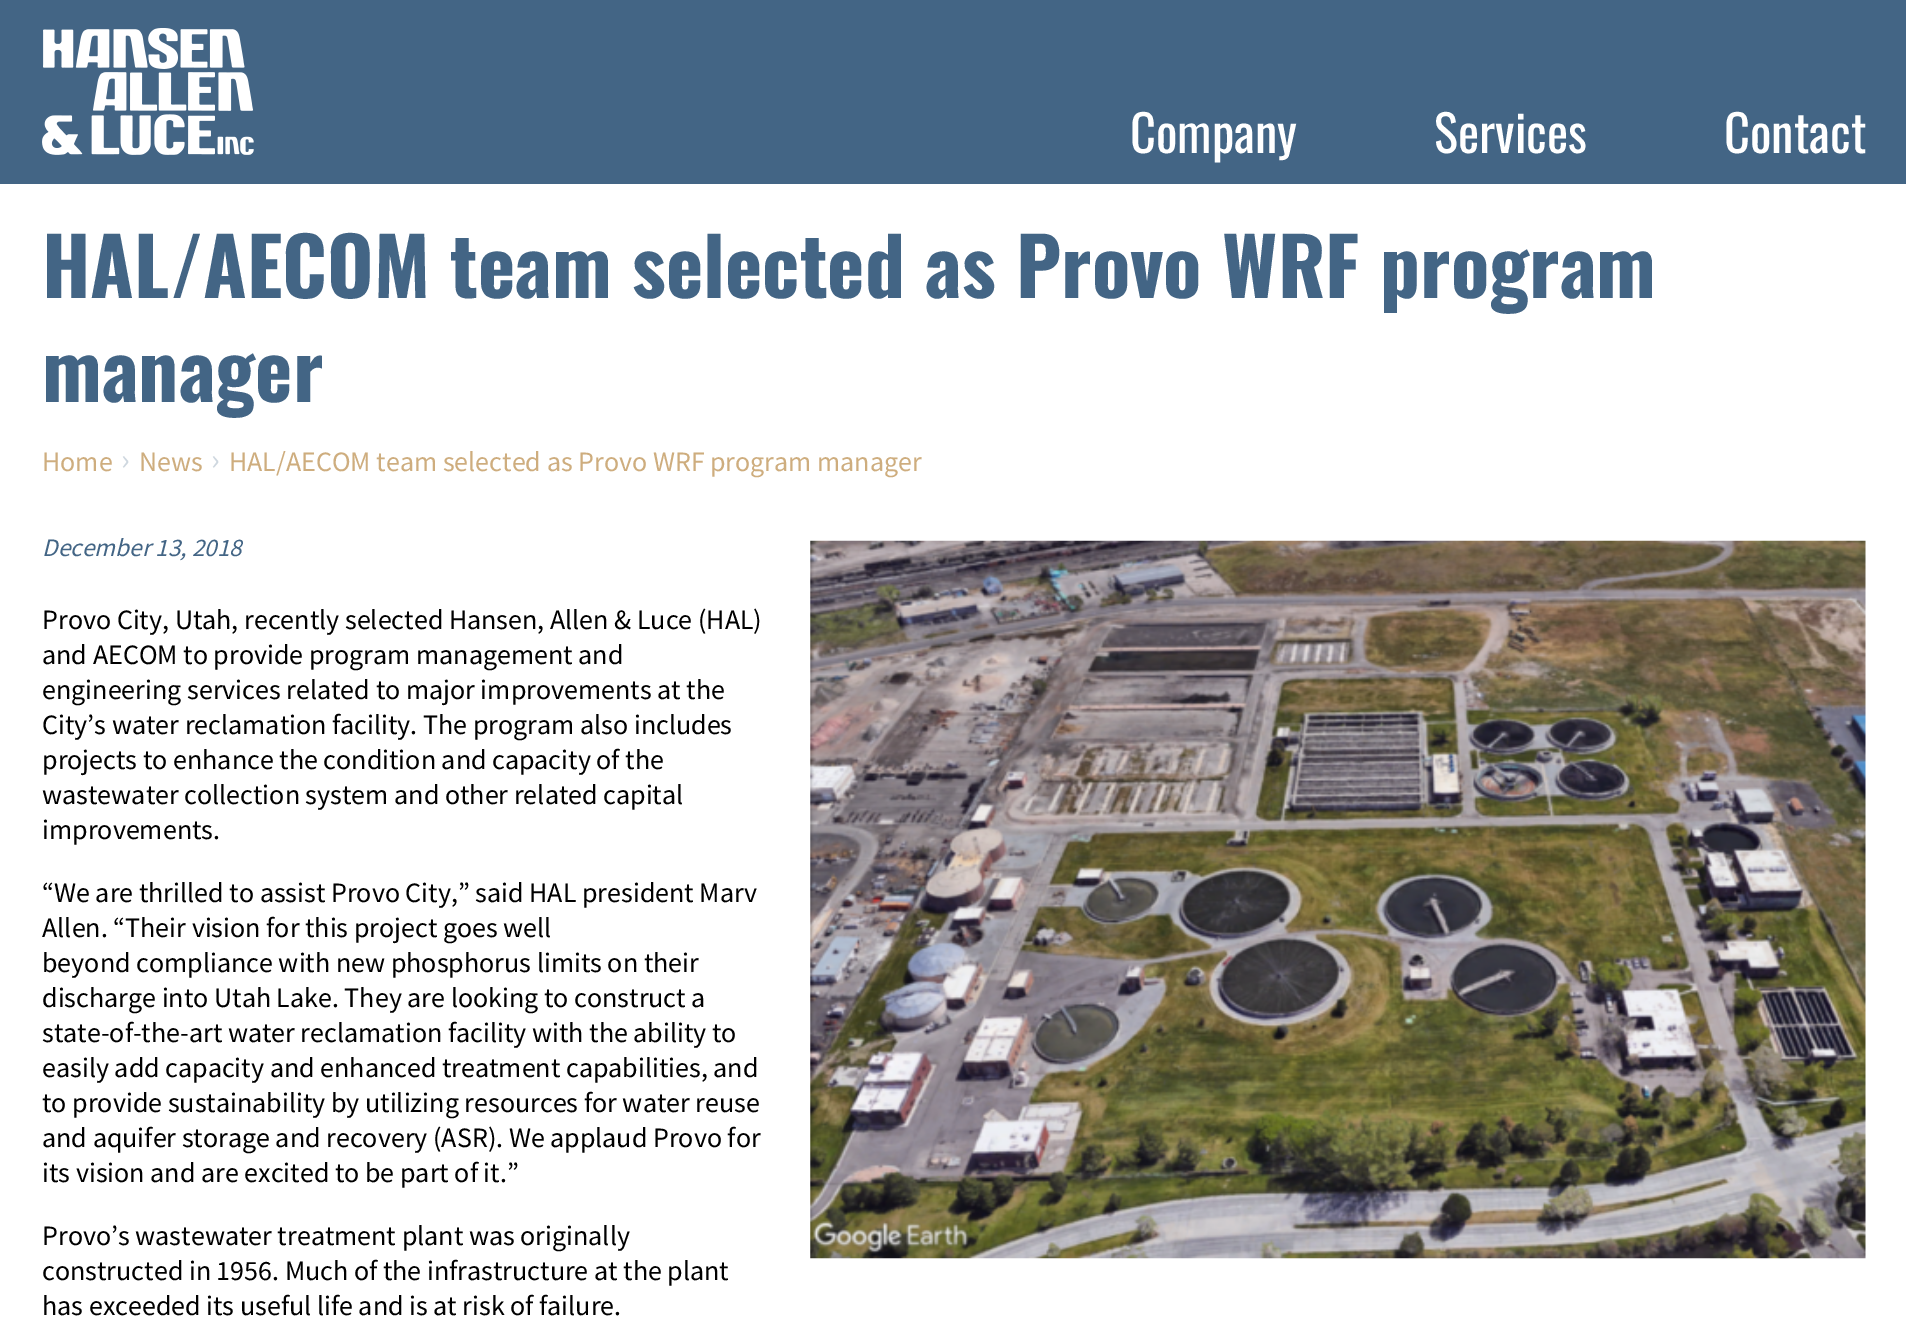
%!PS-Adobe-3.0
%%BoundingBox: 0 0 1906 1332
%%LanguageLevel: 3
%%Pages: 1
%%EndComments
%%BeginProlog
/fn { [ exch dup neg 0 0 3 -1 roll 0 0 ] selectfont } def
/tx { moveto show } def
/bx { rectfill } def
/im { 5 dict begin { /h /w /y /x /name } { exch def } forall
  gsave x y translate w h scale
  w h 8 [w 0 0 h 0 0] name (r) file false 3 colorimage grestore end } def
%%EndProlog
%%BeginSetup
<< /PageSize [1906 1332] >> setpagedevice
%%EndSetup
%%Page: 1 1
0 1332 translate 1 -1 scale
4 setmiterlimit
1 setgray
0 0 1906 1332 bx
0.263 0.396 0.522 setrgbcolor
0 0 1906 184 bx
(image0.raw) 42 28 212 127 im
/Oswald-Regular 50.5 fn
1 setgray
(Company) 1130 153 tx
(Services) 1434 153 tx
(Contact) 1724 153 tx
/Oswald-Bold 79.5 fn
0.263 0.396 0.522 setrgbcolor
(HAL/AECOM team selected as Provo WRF program) 42 298 tx
(manager) 42 402 tx
/SourceSansPro-Regular 28 fn
0.808 0.678 0.494 setrgbcolor
(Home) 42 471 tx
/SourceSansPro-Regular 32 fn
0.808 0.843 0.875 setrgbcolor
(›) 121 470 tx
/SourceSansPro-Regular 28 fn
0.808 0.678 0.494 setrgbcolor
(News) 139 471 tx
/SourceSansPro-Regular 32 fn
0.808 0.843 0.875 setrgbcolor
(›) 211 470 tx
/SourceSansPro-Regular 28 fn
0.808 0.678 0.494 setrgbcolor
(HAL/AECOM team selected as Provo WRF program manager) 229 471 tx
/SourceSansPro-Italic 25.25 fn
0.263 0.396 0.522 setrgbcolor
(December 13, 2018) 42 556 tx
(image1.raw) 810 540 1056 719 im
/SourceSansPro-Regular 28 fn
0 setgray
(Provo City, Utah, recently selected Hansen, Allen & Luce \(HAL\)) 42 629 tx
(and AECOM to provide program management and) 42 664 tx
(engineering services related to major improvements at the) 42 699 tx
(City’s water reclamation facility. The program also includes) 42 734 tx
(projects to enhance the condition and capacity of the) 42 769 tx
(wastewater collection system and other related capital) 42 804 tx
(improvements.) 42 839 tx
(“We are thrilled to assist Provo City,” said HAL president Marv) 42 902 tx
(Allen. “Their vision for this project goes well) 42 937 tx
(beyond compliance with new phosphorus limits on their) 42 972 tx
(discharge into Utah Lake. They are looking to construct a) 42 1007 tx
(state-of-the-art water reclamation facility with the ability to) 42 1042 tx
(easily add capacity and enhanced treatment capabilities, and) 42 1077 tx
(to provide sustainability by utilizing resources for water reuse) 42 1112 tx
(and aquifer storage and recovery \(ASR\). We applaud Provo for) 42 1147 tx
(its vision and are excited to be part of it.”) 42 1182 tx
(Provo’s wastewater treatment plant was originally) 42 1245 tx
(constructed in 1956. Much of the infrastructure at the plant) 42 1280 tx
(has exceeded its useful life and is at risk of failure.) 42 1315 tx
showpage
%%EOF
